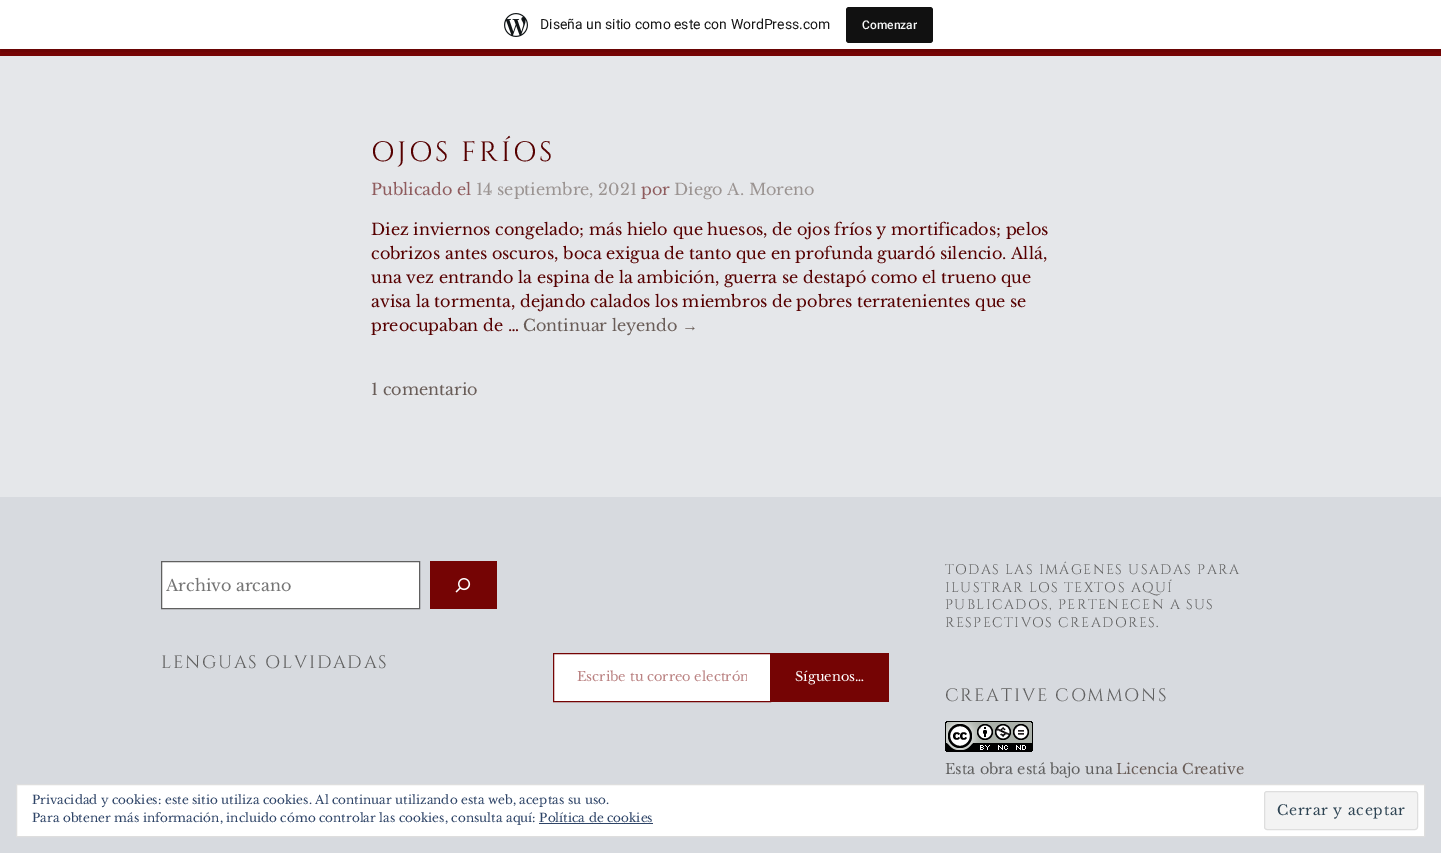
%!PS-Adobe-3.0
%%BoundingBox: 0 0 1441 853
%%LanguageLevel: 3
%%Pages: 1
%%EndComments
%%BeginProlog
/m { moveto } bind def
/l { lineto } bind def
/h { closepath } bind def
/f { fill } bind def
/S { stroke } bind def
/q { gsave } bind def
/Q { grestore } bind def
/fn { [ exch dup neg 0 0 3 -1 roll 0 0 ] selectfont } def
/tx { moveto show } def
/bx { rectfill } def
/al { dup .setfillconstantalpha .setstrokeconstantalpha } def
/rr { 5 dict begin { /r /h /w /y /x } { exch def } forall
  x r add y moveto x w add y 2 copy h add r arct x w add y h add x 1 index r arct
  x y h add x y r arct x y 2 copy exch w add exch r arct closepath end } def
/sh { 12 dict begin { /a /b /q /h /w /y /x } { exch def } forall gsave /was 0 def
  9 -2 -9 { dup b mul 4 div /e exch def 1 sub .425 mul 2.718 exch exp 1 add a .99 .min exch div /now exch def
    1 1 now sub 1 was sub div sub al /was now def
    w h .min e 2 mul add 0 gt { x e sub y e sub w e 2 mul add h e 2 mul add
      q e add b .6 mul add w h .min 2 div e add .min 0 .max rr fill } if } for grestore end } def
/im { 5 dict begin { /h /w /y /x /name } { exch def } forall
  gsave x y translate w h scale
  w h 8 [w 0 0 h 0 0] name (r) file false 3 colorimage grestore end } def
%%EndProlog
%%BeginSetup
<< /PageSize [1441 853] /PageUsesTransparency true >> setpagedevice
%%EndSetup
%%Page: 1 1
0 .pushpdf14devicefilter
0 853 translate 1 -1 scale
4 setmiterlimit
0.898 0.906 0.918 setrgbcolor
0 0 1441 853 bx
0.459 0.016 0.016 setrgbcolor
0 49 1441 7 bx
0 setgray
0 1 1441 49 0 1 0.05 sh
0.08 al
1 49 m 1 52 l 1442 52 l 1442 3 l 1441 3 l 1441 49 l h f
1 al
1 setgray
0 0 1441 49 bx
(image0.raw) 504 13 24 24 im
/Roboto-Regular 14 fn
0.09 setgray
(Diseña un sitio como este con WordPress.com) 540 29 tx
0.067 setgray
846 7 87 36 3 rr f
/Roboto-Medium 12 fn
0.965 0.969 0.969 setrgbcolor
(Comenzar) 862 29 tx
/Cinzel-Regular 28 fn
0.337 0 0 setrgbcolor
371 161 m 2.75 0 (OJOS FRÍOS) ashow
/LibreBaskerville-Regular 16 fn
0.561 0.361 0.369 setrgbcolor
(Publicado el) 371 195 tx
0.608 0.58 0.573 setrgbcolor
(14 septiembre, 2021) 476 195 tx
0.561 0.361 0.369 setrgbcolor
(por) 641 195 tx
0.608 0.58 0.573 setrgbcolor
(Diego A. Moreno) 674 195 tx
0.337 0 0 setrgbcolor
(Diez inviernos congelado; más hielo que huesos, de ojos fríos y mortificados; pelos) 371 235 tx
(cobrizos antes oscuros, boca exigua de tanto que en profunda guardó silencio. Allá,) 371 259 tx
(una vez entrando la espina de la ambición, guerra se destapó como el trueno que) 371 283 tx
(avisa la tormenta, dejando calados los miembros de pobres terratenientes que se) 371 307 tx
(preocupaban de …) 371 331 tx
0.412 0.365 0.345 setrgbcolor
(Continuar leyendo) 523 331 tx
/LiberationSerif-Regular 16 fn
(→) 682 331 tx
/LibreBaskerville-Regular 16 fn
(1 comentario) 371 395 tx
0.843 0.855 0.875 setrgbcolor
0 497 1441 356 bx
1 setgray
161.5 561.5 m 419.5 561.5 l 419.5 608.5 l 161.5 608.5 l h q f Q
0.376 setgray
S
0.459 setgray
(Archivo arcano) 166 591 tx
0.459 0.016 0.016 setrgbcolor
430 561 67 48 bx
(image1.raw) 455 578 16 15 im
/Cinzel-Regular 18 fn
0.376 setgray
161 668 m 1.75 0 (LENGUAS OLVIDADAS) ashow
/Cinzel-Regular 14 fn
945 574 m 1.4 0 (TODAS LAS IMÁGENES USADAS PARA) ashow
945 592 m 1.4 0 (ILUSTRAR LOS TEXTOS AQUÍ) ashow
945 609 m 1.4 0 (PUBLICADOS, PERTENECEN A SUS) ashow
945 627 m 1.4 0 (RESPECTIVOS CREADORES.) ashow
/Cinzel-Regular 18 fn
945 701 m 1.75 0 (CREATIVE COMMONS) ashow
(image2.raw) 945 721 88 31 im
/LibreBaskerville-Regular 14.4 fn
(Esta obra está bajo una) 945 774 tx
0.412 0.365 0.345 setrgbcolor
(Licencia Creative) 1116 774 tx
1 setgray
553.5 653.5 m 770.5 653.5 l 770.5 701.5 l 553.5 701.5 l h q f Q
0.459 0.016 0.016 setrgbcolor
S
q
577 668 170 17 rectclip
/LibreBaskerville-Regular 13 fn
0.729 0.51 0.51 setrgbcolor
(Escribe tu correo electrón) 577 681 tx
Q
771 653 118 49 bx
/LibreBaskerville-Regular 13 fn
1 setgray
(Síguenos…) 795 681 tx
16.5 784.5 m 1424.5 784.5 l 1424.5 836.5 l 16.5 836.5 l h q f Q
0.871 setgray
S
/LibreBaskerville-Regular 12 fn
0.18 0.267 0.404 setrgbcolor
(Privacidad y cookies: este sitio utiliza cookies. Al continuar utilizando esta web, aceptas su uso.) 32 804 tx
(Para obtener más información, incluido cómo controlar las cookies, consulta aquí: Política de cookies) 32 822 tx
0.953 setgray
1264.5 791.5 153 38 2.5 rr q f Q
0.871 setgray
S
/LibreBaskerville-Regular 14 fn
0.18 0.267 0.325 setrgbcolor
1277 815 m 0.75 0 (Cerrar y aceptar) ashow
0.18 0.267 0.404 setrgbcolor
539 823 114 1 bx
.poppdf14devicefilter showpage
%%EOF
